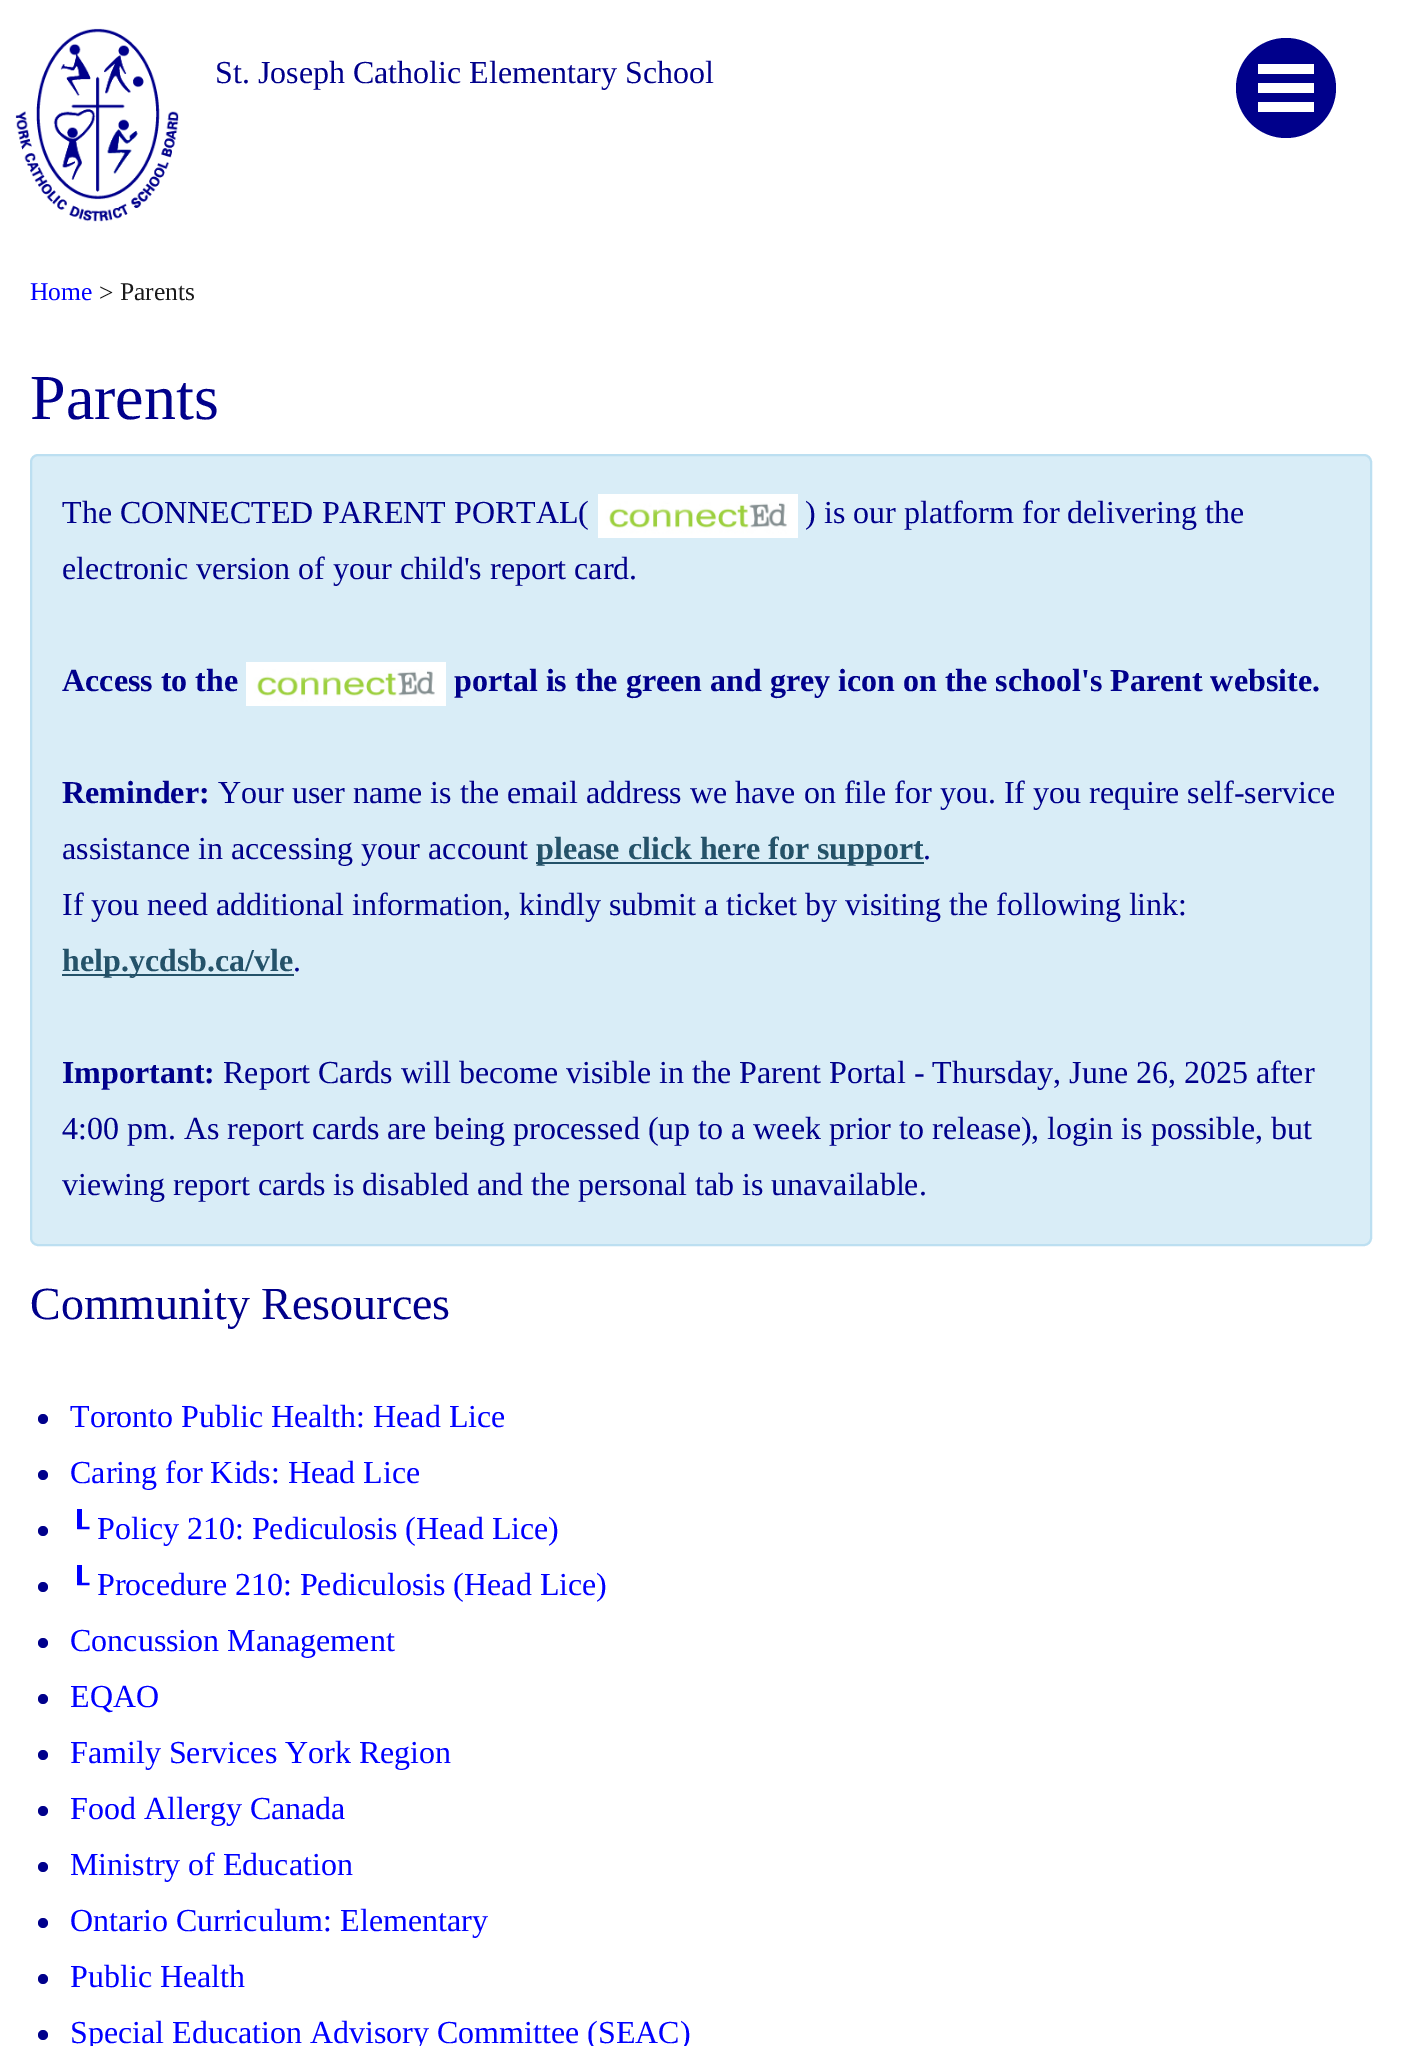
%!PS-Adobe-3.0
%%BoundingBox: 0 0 1401 2046
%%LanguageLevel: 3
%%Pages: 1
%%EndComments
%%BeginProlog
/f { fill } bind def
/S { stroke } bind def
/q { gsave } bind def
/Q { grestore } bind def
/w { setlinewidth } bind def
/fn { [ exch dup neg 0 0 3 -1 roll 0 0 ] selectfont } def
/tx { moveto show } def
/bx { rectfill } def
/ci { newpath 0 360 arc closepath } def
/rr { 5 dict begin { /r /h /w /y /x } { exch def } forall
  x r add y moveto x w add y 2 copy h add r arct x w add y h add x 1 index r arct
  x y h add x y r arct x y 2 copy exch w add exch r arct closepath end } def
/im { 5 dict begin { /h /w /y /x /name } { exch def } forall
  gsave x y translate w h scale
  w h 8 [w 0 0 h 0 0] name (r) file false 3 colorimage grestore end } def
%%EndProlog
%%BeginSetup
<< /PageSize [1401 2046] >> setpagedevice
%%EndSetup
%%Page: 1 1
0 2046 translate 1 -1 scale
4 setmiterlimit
1 setgray
0 0 1401 2046 bx
(image0.raw) 15 28 164 194 im
/LiberationSerif-Regular 32 fn
0 0 0.545 setrgbcolor
(St. Joseph Catholic Elementary School) 215 83 tx
1286 88 50 ci f
1 setgray
1258 64 56 10 bx
1258 83 56 10 bx
1258 102 56 10 bx
/LiberationSerif-Regular 25.5 fn
0 0 1 setrgbcolor
(Home) 30 300 tx
0.102 setgray
(>) 99 301 tx
(Parents) 120 300 tx
/LiberationSerif-Regular 64 fn
0 0 0.545 setrgbcolor
(Parents) 30 419 tx
0.851 0.929 0.969 setrgbcolor
31 455 1340 790 7 rr q f Q
0.737 0.875 0.945 setrgbcolor
2 w
S
/LiberationSerif-Regular 32 fn
0 0 0.545 setrgbcolor
(The CONNECTED PARENT PORTAL\() 62 523 tx
(image1.raw) 598 494 200 44 im
(\) is our platform for delivering the) 805 523 tx
(electronic version of your child's report card.) 62 579 tx
/LiberationSerif-Bold 32 fn
(Access to the) 62 691 tx
(image2.raw) 246 662 200 44 im
(portal is the green and grey icon on the school's Parent website.) 454 691 tx
(Reminder:) 62 803 tx
/LiberationSerif-Regular 32 fn
(Your user name is the email address we have on file for you. If you require self-service) 218 803 tx
(assistance in accessing your account) 62 859 tx
0.141 0.322 0.412 setrgbcolor
536 862 388 2 bx
/LiberationSerif-Bold 32 fn
(please click here for support) 536 859 tx
/LiberationSerif-Regular 32 fn
0 0 0.545 setrgbcolor
(.) 923 859 tx
(If you need additional information, kindly submit a ticket by visiting the following link:) 62 915 tx
0.141 0.322 0.412 setrgbcolor
62 974 232 2 bx
/LiberationSerif-Bold 32 fn
(help.ycdsb.ca/vle) 62 971 tx
/LiberationSerif-Regular 32 fn
0 0 0.545 setrgbcolor
(.) 293 971 tx
/LiberationSerif-Bold 32 fn
(Important:) 62 1083 tx
/LiberationSerif-Regular 32 fn
(Report Cards will become visible in the Parent Portal - Thursday, June 26, 2025 after) 223 1083 tx
(4:00 pm. As report cards are being processed \(up to a week prior to release\), login is possible, but) 62 1139 tx
(viewing report cards is disabled and the personal tab is unavailable.) 62 1195 tx
/LiberationSerif-Regular 46 fn
(Community Resources) 30 1319 tx
43 1419 5 ci f
/LiberationSerif-Regular 32 fn
0 0 1 setrgbcolor
(Toronto Public Health: Head Lice) 70 1427 tx
0 0 0.545 setrgbcolor
43 1475 5 ci f
0 0 1 setrgbcolor
(Caring for Kids: Head Lice) 70 1483 tx
0 0 0.545 setrgbcolor
43 1531 5 ci f
/DejaVuSans-Regular 32 fn
0 0 1 setrgbcolor
(┖) 70 1539 tx
/LiberationSerif-Regular 32 fn
(Policy 210: Pediculosis \(Head Lice\)) 97 1539 tx
0 0 0.545 setrgbcolor
43 1587 5 ci f
/DejaVuSans-Regular 32 fn
0 0 1 setrgbcolor
(┖) 70 1595 tx
/LiberationSerif-Regular 32 fn
(Procedure 210: Pediculosis \(Head Lice\)) 97 1595 tx
0 0 0.545 setrgbcolor
43 1643 5 ci f
0 0 1 setrgbcolor
(Concussion Management) 70 1651 tx
0 0 0.545 setrgbcolor
43 1699 5 ci f
0 0 1 setrgbcolor
(EQAO) 70 1707 tx
0 0 0.545 setrgbcolor
43 1755 5 ci f
0 0 1 setrgbcolor
(Family Services York Region) 70 1763 tx
0 0 0.545 setrgbcolor
43 1811 5 ci f
0 0 1 setrgbcolor
(Food Allergy Canada) 70 1819 tx
0 0 0.545 setrgbcolor
43 1867 5 ci f
0 0 1 setrgbcolor
(Ministry of Education) 70 1875 tx
0 0 0.545 setrgbcolor
43 1923 5 ci f
0 0 1 setrgbcolor
(Ontario Curriculum: Elementary) 70 1931 tx
0 0 0.545 setrgbcolor
43 1979 5 ci f
0 0 1 setrgbcolor
(Public Health) 70 1987 tx
0 0 0.545 setrgbcolor
43 2035 5 ci f
0 0 1 setrgbcolor
(Special Education Advisory Committee \(SEAC\)) 70 2043 tx
showpage
%%EOF
